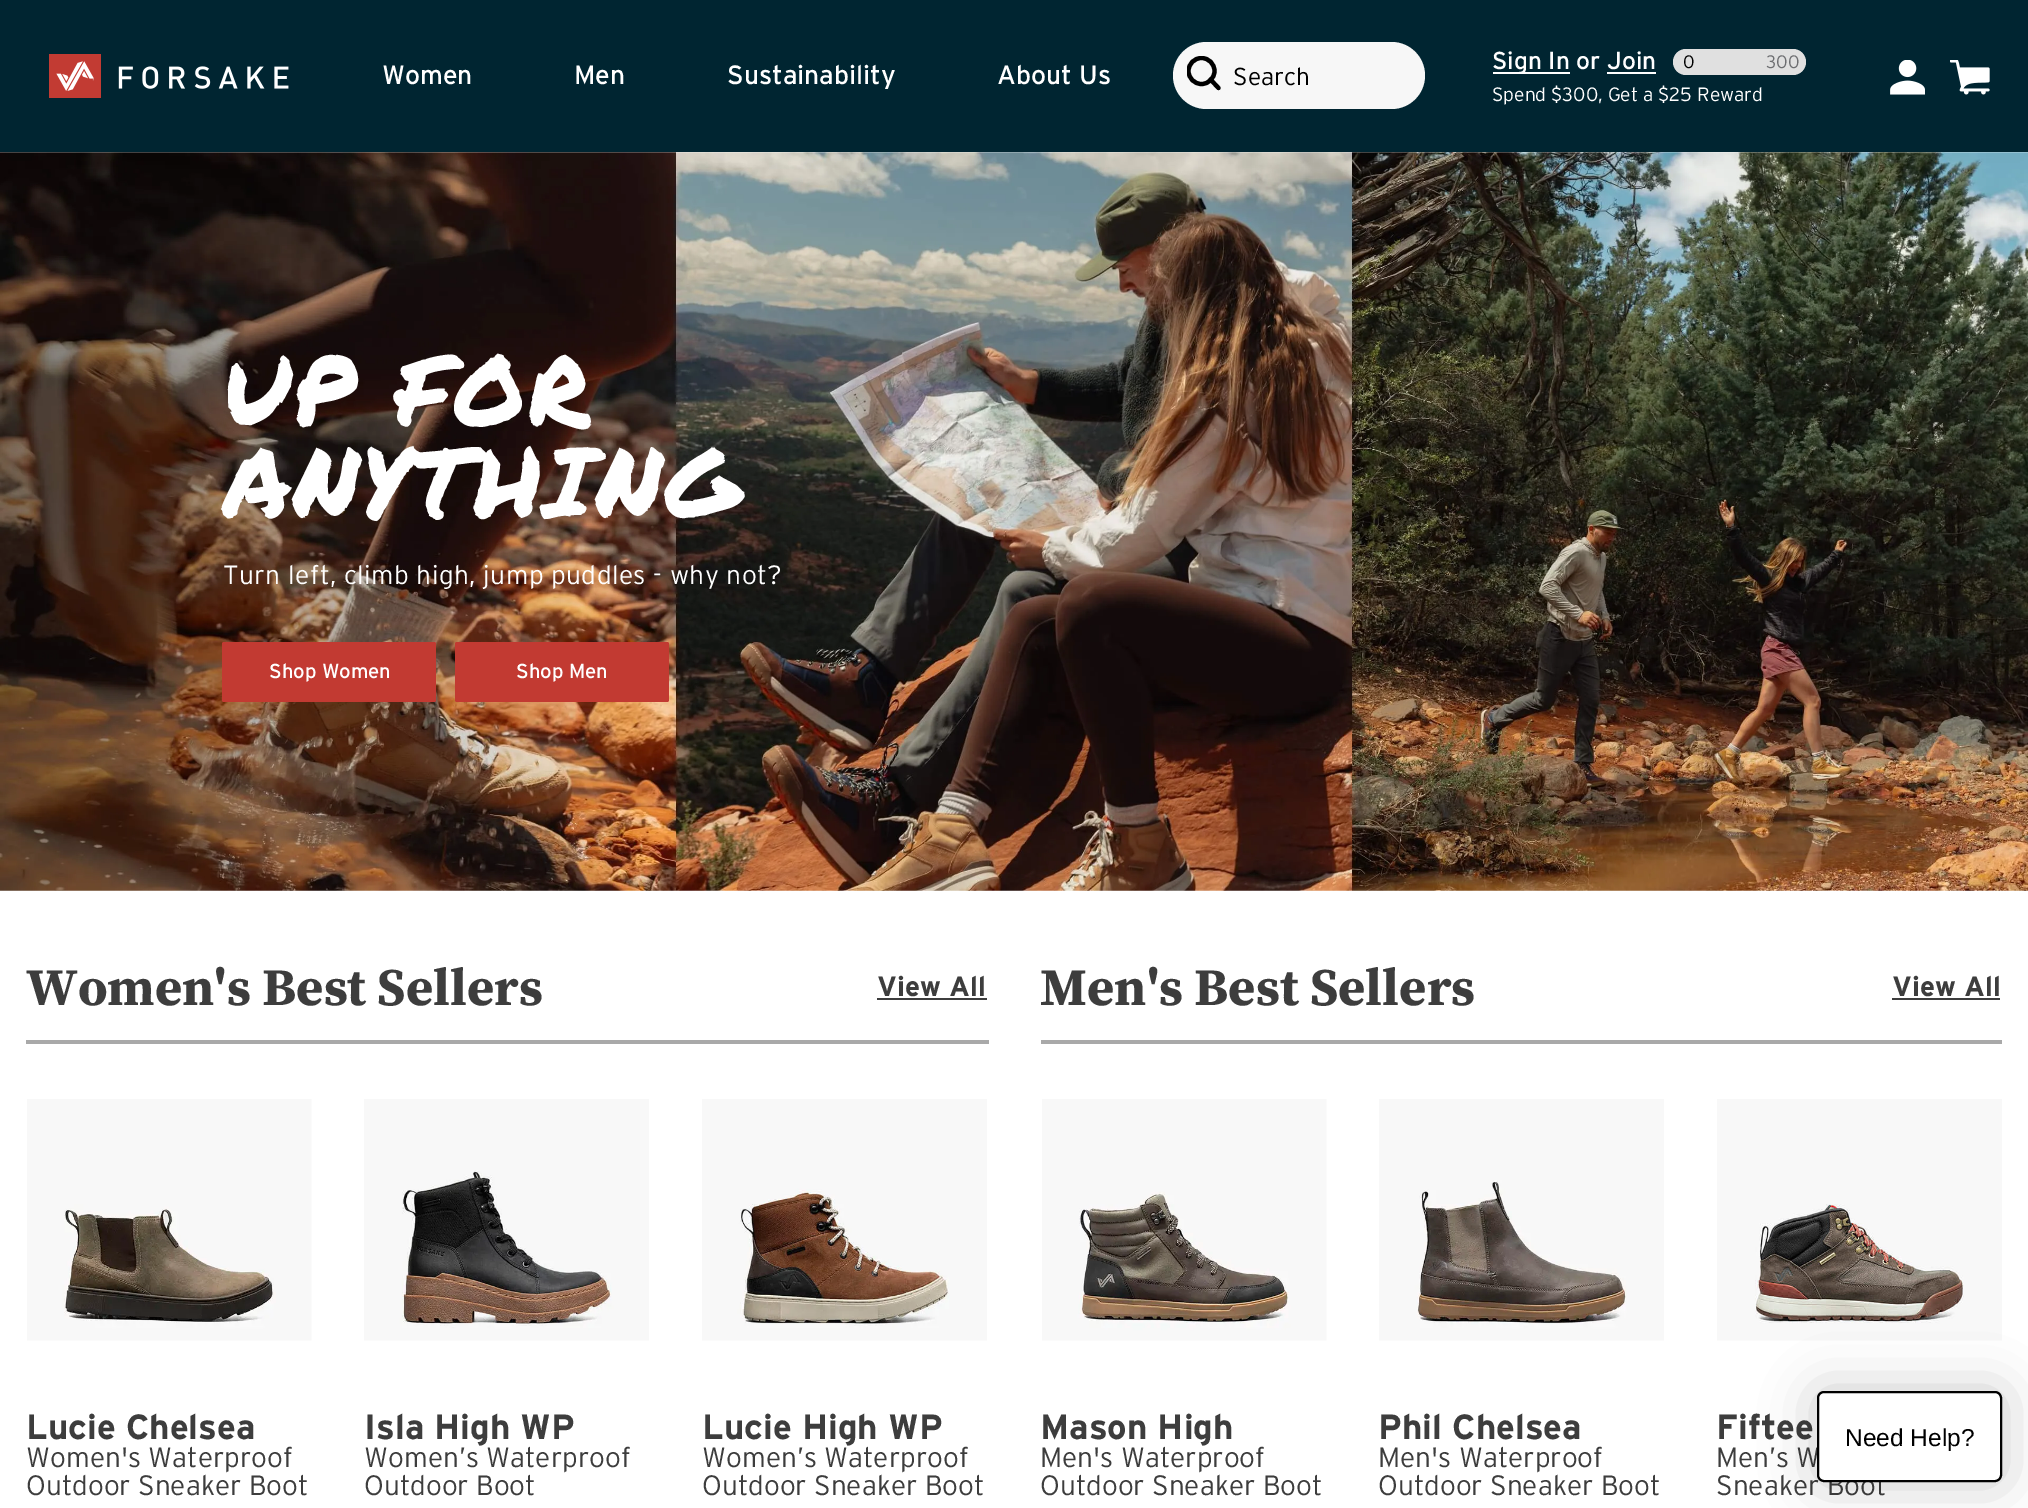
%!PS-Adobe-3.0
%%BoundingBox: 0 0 2028 1508
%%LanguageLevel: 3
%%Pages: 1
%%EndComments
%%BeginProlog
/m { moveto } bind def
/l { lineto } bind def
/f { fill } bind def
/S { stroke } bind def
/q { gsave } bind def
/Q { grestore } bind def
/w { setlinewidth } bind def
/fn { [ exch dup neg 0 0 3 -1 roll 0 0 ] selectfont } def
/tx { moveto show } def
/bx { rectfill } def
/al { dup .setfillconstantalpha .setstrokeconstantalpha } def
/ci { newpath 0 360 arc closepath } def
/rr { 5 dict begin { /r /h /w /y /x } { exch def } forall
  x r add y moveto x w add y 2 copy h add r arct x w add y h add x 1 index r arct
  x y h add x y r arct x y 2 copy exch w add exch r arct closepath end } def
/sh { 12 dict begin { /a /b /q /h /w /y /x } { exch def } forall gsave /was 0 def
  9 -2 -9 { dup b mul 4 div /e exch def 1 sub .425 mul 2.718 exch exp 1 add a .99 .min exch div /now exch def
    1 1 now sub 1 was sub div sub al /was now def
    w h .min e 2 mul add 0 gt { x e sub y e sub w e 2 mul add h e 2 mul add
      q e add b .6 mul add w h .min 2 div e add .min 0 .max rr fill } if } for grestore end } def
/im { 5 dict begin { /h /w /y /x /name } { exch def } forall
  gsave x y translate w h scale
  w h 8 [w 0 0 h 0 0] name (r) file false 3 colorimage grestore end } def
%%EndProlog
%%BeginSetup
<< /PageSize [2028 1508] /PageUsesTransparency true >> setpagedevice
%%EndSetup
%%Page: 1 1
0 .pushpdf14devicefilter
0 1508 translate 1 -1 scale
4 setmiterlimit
1 setgray
0 0 2028 1508 bx
0 0.145 0.192 setrgbcolor
0 0 2028 152 bx
(image0.raw) 49 54 240 44 im
/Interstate-Regular 26.5 fn
1 setgray
(Women) 382 84 tx
(Men) 574 84 tx
(Sustainability) 727 84 tx
(About Us) 997 84 tx
0.969 setgray
1173 42 252 67 33.5 rr f
q
1187 56 35 35 rectclip
0 setgray
4.2 w
1201.5 71 13 ci S
Q
0 setgray
4.2 w
1 setlinecap
1 setlinejoin
1218.5 88 m 1210.5 79.5 l S
/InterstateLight-Light 24.5 fn
(Search) 1233 85 tx
1 setgray
1493 72 77 2 bx
/Interstate-Regular 24.5 fn
(Sign In or Join) 1492 69 tx
1607 72 49 2 bx
0.878 setgray
1673 49 133 26 13 rr f
/InterstateLight-Light 18 fn
0 setgray
(0) 1683 68 tx
0.427 0.431 0.443 setrgbcolor
(300) 1766 68 tx
/InterstateLight-Light 19.25 fn
1 setgray
(Spend $300, Get a $25 Reward) 1492 101 tx
(image1.raw) 1890 60 35 35 im
(image2.raw) 1950 60 40 35 im
(image3.raw) 0 152 2028 739 im
/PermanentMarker-Regular 97.5 fn
223 426 m 2 0 (UP FOR) ashow
223 518 m 2 0 (ANYTHING) ashow
/InterstateLight-Light 26.4 fn
223 584 m 0.4 0 (Turn left, climb high, jump puddles - why not?) ashow
0.761 0.227 0.196 setrgbcolor
222 642 214 60 2 rr f
/Interstate-Regular 20.25 fn
1 setgray
(Shop Women) 269 678 tx
0.761 0.227 0.196 setrgbcolor
455 642 214 60 2 rr f
1 setgray
(Shop Men) 516 678 tx
/SourceSerifPro-Bold 52.5 fn
0.239 setgray
(Women's Best Sellers) 26 1005 tx
/Interstate-Bold 28 fn
(View All) 877 996 tx
877 998 110 2 bx
0.663 setgray
26 1040 963 4 bx
/SourceSerifPro-Bold 52.5 fn
0.239 setgray
(Men's Best Sellers) 1040 1005 tx
/Interstate-Bold 28 fn
(View All) 1892 996 tx
1892 998 108 2 bx
0.663 setgray
1041 1040 961 4 bx
(image4.raw) 27 1099 285 242 im
/Interstate-Bold 35 fn
0.239 setgray
(Lucie Chelsea) 26 1439 tx
/InterstateLight-Light 28 fn
(Women's Waterproof) 26 1467 tx
(Outdoor Sneaker Boot) 26 1495 tx
(image5.raw) 364 1099 285 242 im
/Interstate-Bold 35 fn
(Isla High WP) 364 1439 tx
/InterstateLight-Light 28 fn
(Women’s Waterproof) 364 1467 tx
(Outdoor Boot) 364 1495 tx
(image6.raw) 702 1099 285 242 im
/Interstate-Bold 35 fn
(Lucie High WP) 702 1439 tx
/InterstateLight-Light 28 fn
(Women’s Waterproof) 702 1467 tx
(Outdoor Sneaker Boot) 702 1495 tx
(image7.raw) 1042 1099 285 242 im
/Interstate-Bold 35 fn
(Mason High) 1040 1439 tx
/InterstateLight-Light 28 fn
(Men's Waterproof) 1040 1467 tx
(Outdoor Sneaker Boot) 1040 1495 tx
(image8.raw) 1379 1099 285 242 im
/Interstate-Bold 35 fn
(Phil Chelsea) 1378 1439 tx
/InterstateLight-Light 28 fn
(Men's Waterproof) 1378 1467 tx
(Outdoor Sneaker Boot) 1378 1495 tx
(image9.raw) 1717 1099 285 242 im
/Interstate-Bold 35 fn
(Fiftee) 1716 1439 tx
/InterstateLight-Light 28 fn
(Men’s W) 1716 1467 tx
(Sneaker Boot) 1716 1495 tx
0 setgray
1815 1390 189 94 9 26 0.2 sh
1 setgray
1818 1392 183 89 6 rr q f Q
0 setgray
2 w
0 setlinecap
0 setlinejoin
S
/LiberationSans-Regular 24.5 fn
(Need Help?) 1845 1446 tx
.poppdf14devicefilter showpage
%%EOF
